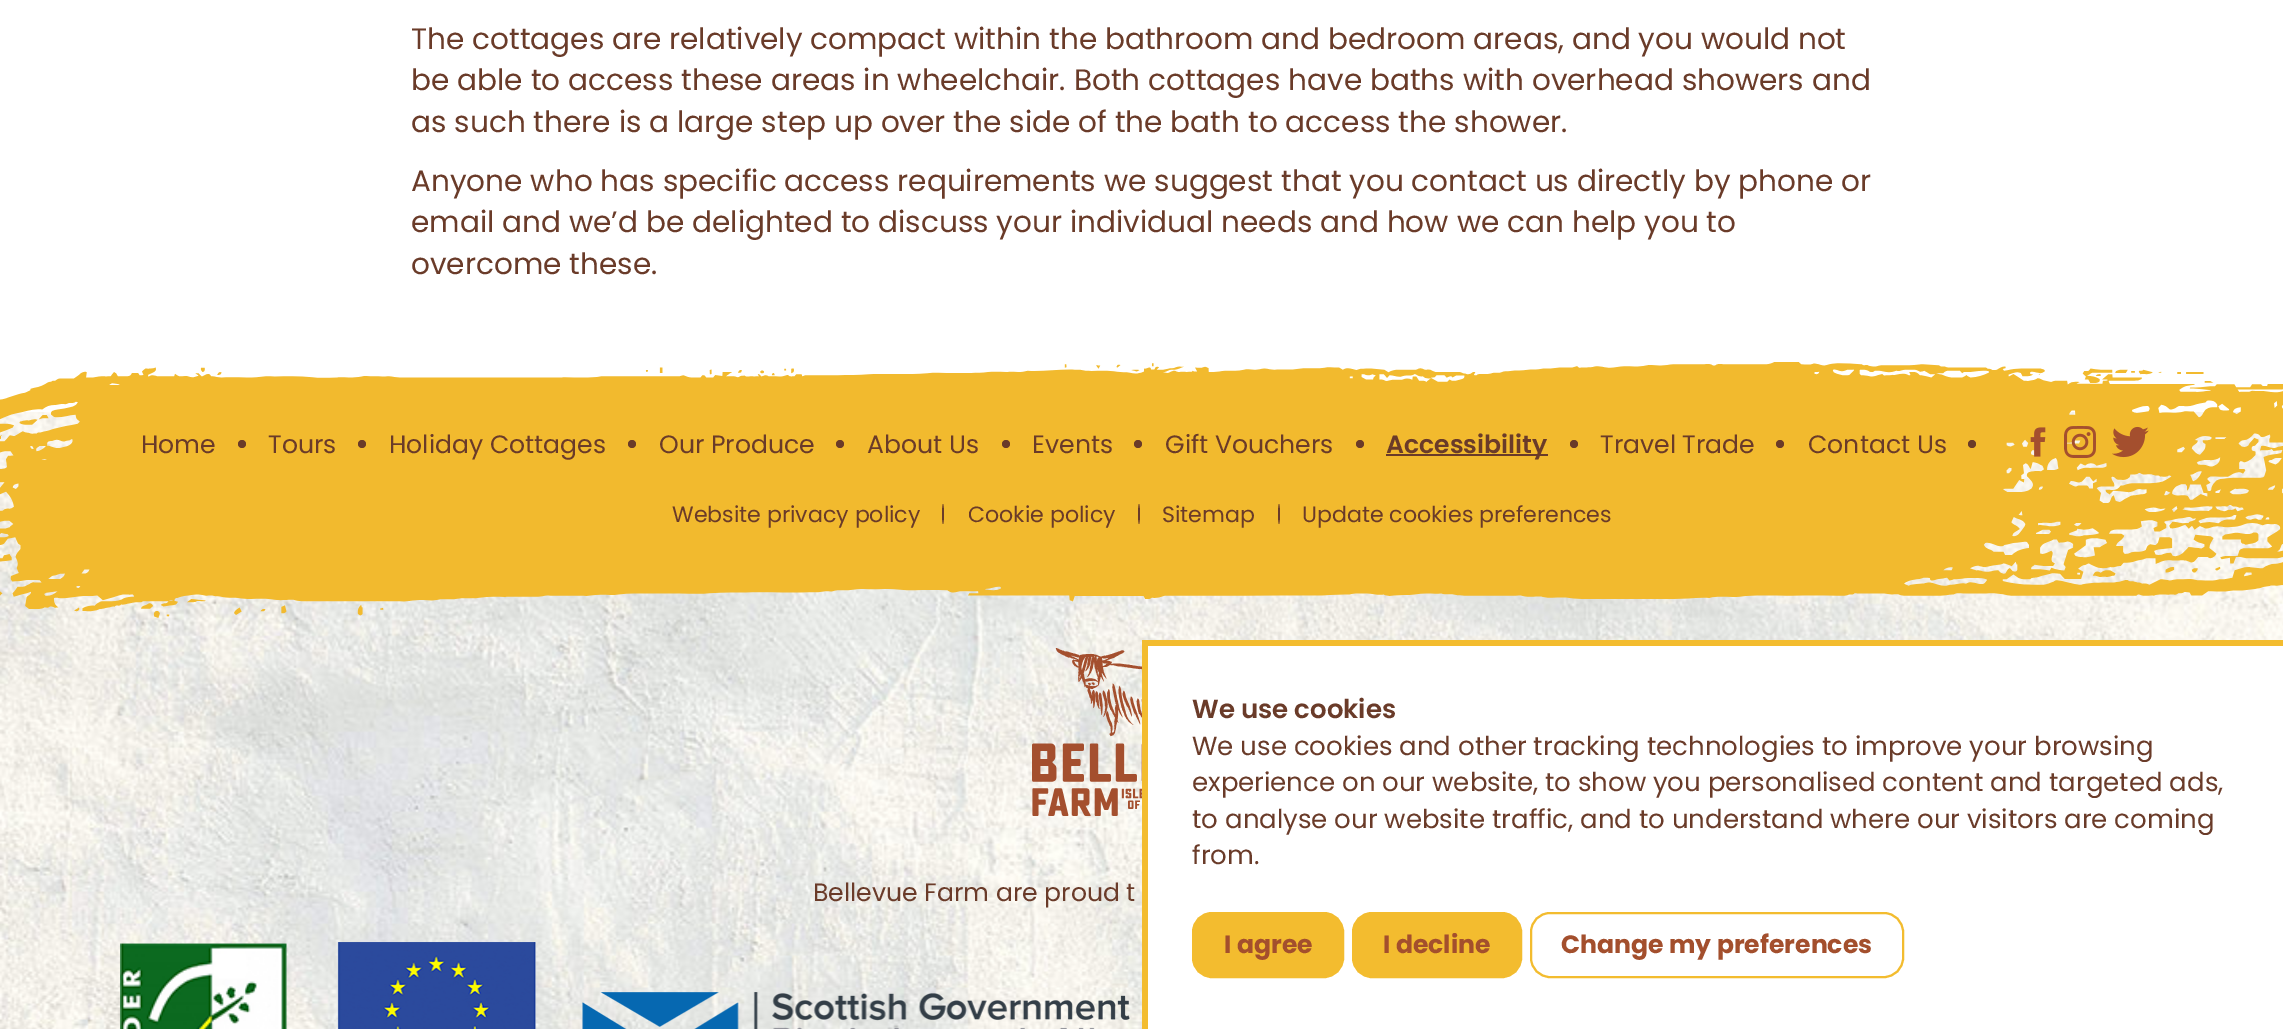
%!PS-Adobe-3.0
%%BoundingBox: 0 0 2283 1029
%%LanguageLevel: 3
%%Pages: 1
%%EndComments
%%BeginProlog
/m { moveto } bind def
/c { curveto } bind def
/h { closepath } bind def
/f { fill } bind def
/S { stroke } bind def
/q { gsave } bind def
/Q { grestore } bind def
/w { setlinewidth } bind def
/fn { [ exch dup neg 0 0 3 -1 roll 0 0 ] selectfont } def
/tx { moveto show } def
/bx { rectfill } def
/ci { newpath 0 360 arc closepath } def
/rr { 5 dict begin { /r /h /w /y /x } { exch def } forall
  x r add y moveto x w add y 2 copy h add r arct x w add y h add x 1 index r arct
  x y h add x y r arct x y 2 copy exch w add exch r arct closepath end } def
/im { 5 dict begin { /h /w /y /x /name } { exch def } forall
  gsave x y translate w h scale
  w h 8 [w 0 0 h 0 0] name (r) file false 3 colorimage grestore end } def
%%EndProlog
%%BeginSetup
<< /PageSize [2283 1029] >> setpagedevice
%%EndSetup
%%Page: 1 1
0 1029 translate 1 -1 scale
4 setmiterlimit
1 setgray
0 0 2283 1029 bx
/Poppins-Regular 29.55 fn
0.416 0.231 0.161 setrgbcolor
411 49 m -0.1 0 32 (The cottages are relatively compact within the bathroom and bedroom areas, and you would not) widthshow
(be able to access these areas in wheelchair. Both cottages have baths with overhead showers and) 411 90 tx
(as such there is a large step up over the side of the bath to access the shower.) 411 132 tx
(Anyone who has specific access requirements we suggest that you contact us directly by phone or) 411 191 tx
(email and we’d be delighted to discuss your individual needs and how we can help you to) 411 232 tx
(overcome these.) 411 274 tx
(image0.raw) 0 412 2283 617 im
(image1.raw) 0 362 2283 256 im
/Poppins-Regular 25.1 fn
(Home) 141 453 tx
242 444 4 ci f
(Tours) 268 453 tx
362 444 4 ci f
(Holiday Cottages) 389 453 tx
632 444 4 ci f
(Our Produce) 659 453 tx
840 444 4 ci f
(About Us) 867 453 tx
1006 444 4 ci f
(Events) 1032 453 tx
1138 444 4 ci f
(Gift Vouchers) 1165 453 tx
1360 444 4 ci f
1386 454 162 2 bx
/Poppins-SemiBold 25.1 fn
(Accessibility) 1386 453 tx
1574 444 4 ci f
/Poppins-Regular 25.1 fn
(Travel Trade) 1600 453 tx
1780 444 4 ci f
(Contact Us) 1808 453 tx
1972 444 4 ci f
(image2.raw) 2030 427 16 30 im
(image3.raw) 2064 426 32 32 im
(image4.raw) 2112 426 37 32 im
/Poppins-Regular 22.1 fn
(Website privacy policy) 672 522 tx
943 504 m 943.5 504 944 508.5 944 514 c 944 519.5 943.5 524 943 524 c 942.5 524 942 519.5 942 514 c 942 508.5 942.5 504 943 504 c h f
(Cookie policy) 968 522 tx
1139 504 m 1139.5 504 1140 508.5 1140 514 c 1140 519.5 1139.5 524 1139 524 c 1138.5 524 1138 519.5 1138 514 c 1138 508.5 1138.5 504 1139 504 c h f
(Sitemap) 1162 522 tx
1279 504 m 1279.5 504 1280 508.5 1280 514 c 1280 519.5 1279.5 524 1279 524 c 1278.5 524 1278 519.5 1278 514 c 1278 508.5 1278.5 504 1279 504 c h f
(Update cookies preferences) 1302 522 tx
(image5.raw) 1032 648 110 168 im
/Poppins-Regular 25.1 fn
(Bellevue Farm are proud t) 813 901 tx
(image6.raw) 120 943 167 86 im
(image7.raw) 337 942 199 87 im
(image8.raw) 582 992 548 37 im
1 setgray
1148 646 1135 383 bx
0.953 0.737 0.184 setrgbcolor
1142 640 1141 6 bx
1142 640 6 389 bx
/Poppins-SemiBold 26 fn
0.416 0.231 0.161 setrgbcolor
(We use cookies) 1192 718 tx
/Poppins-Regular 26 fn
(We use cookies and other tracking technologies to improve your browsing) 1192 755 tx
(experience on our website, to show you personalised content and targeted ads,) 1192 791 tx
(to analyse our website traffic, and to understand where our visitors are coming) 1192 828 tx
(from.) 1192 864 tx
0.953 0.737 0.184 setrgbcolor
1193 913 150 64 19 rr q f Q
2 w
S
/Poppins-Bold 25.1 fn
0.639 0.31 0.176 setrgbcolor
(I agree) 1224 953 tx
0.953 0.737 0.184 setrgbcolor
1353 913 168 64 19 rr q f Q
S
0.639 0.31 0.176 setrgbcolor
(I decline) 1383 953 tx
0.953 0.737 0.184 setrgbcolor
1531 913 372 64 19 rr S
0.639 0.31 0.176 setrgbcolor
(Change my preferences) 1561 953 tx
showpage
%%EOF
